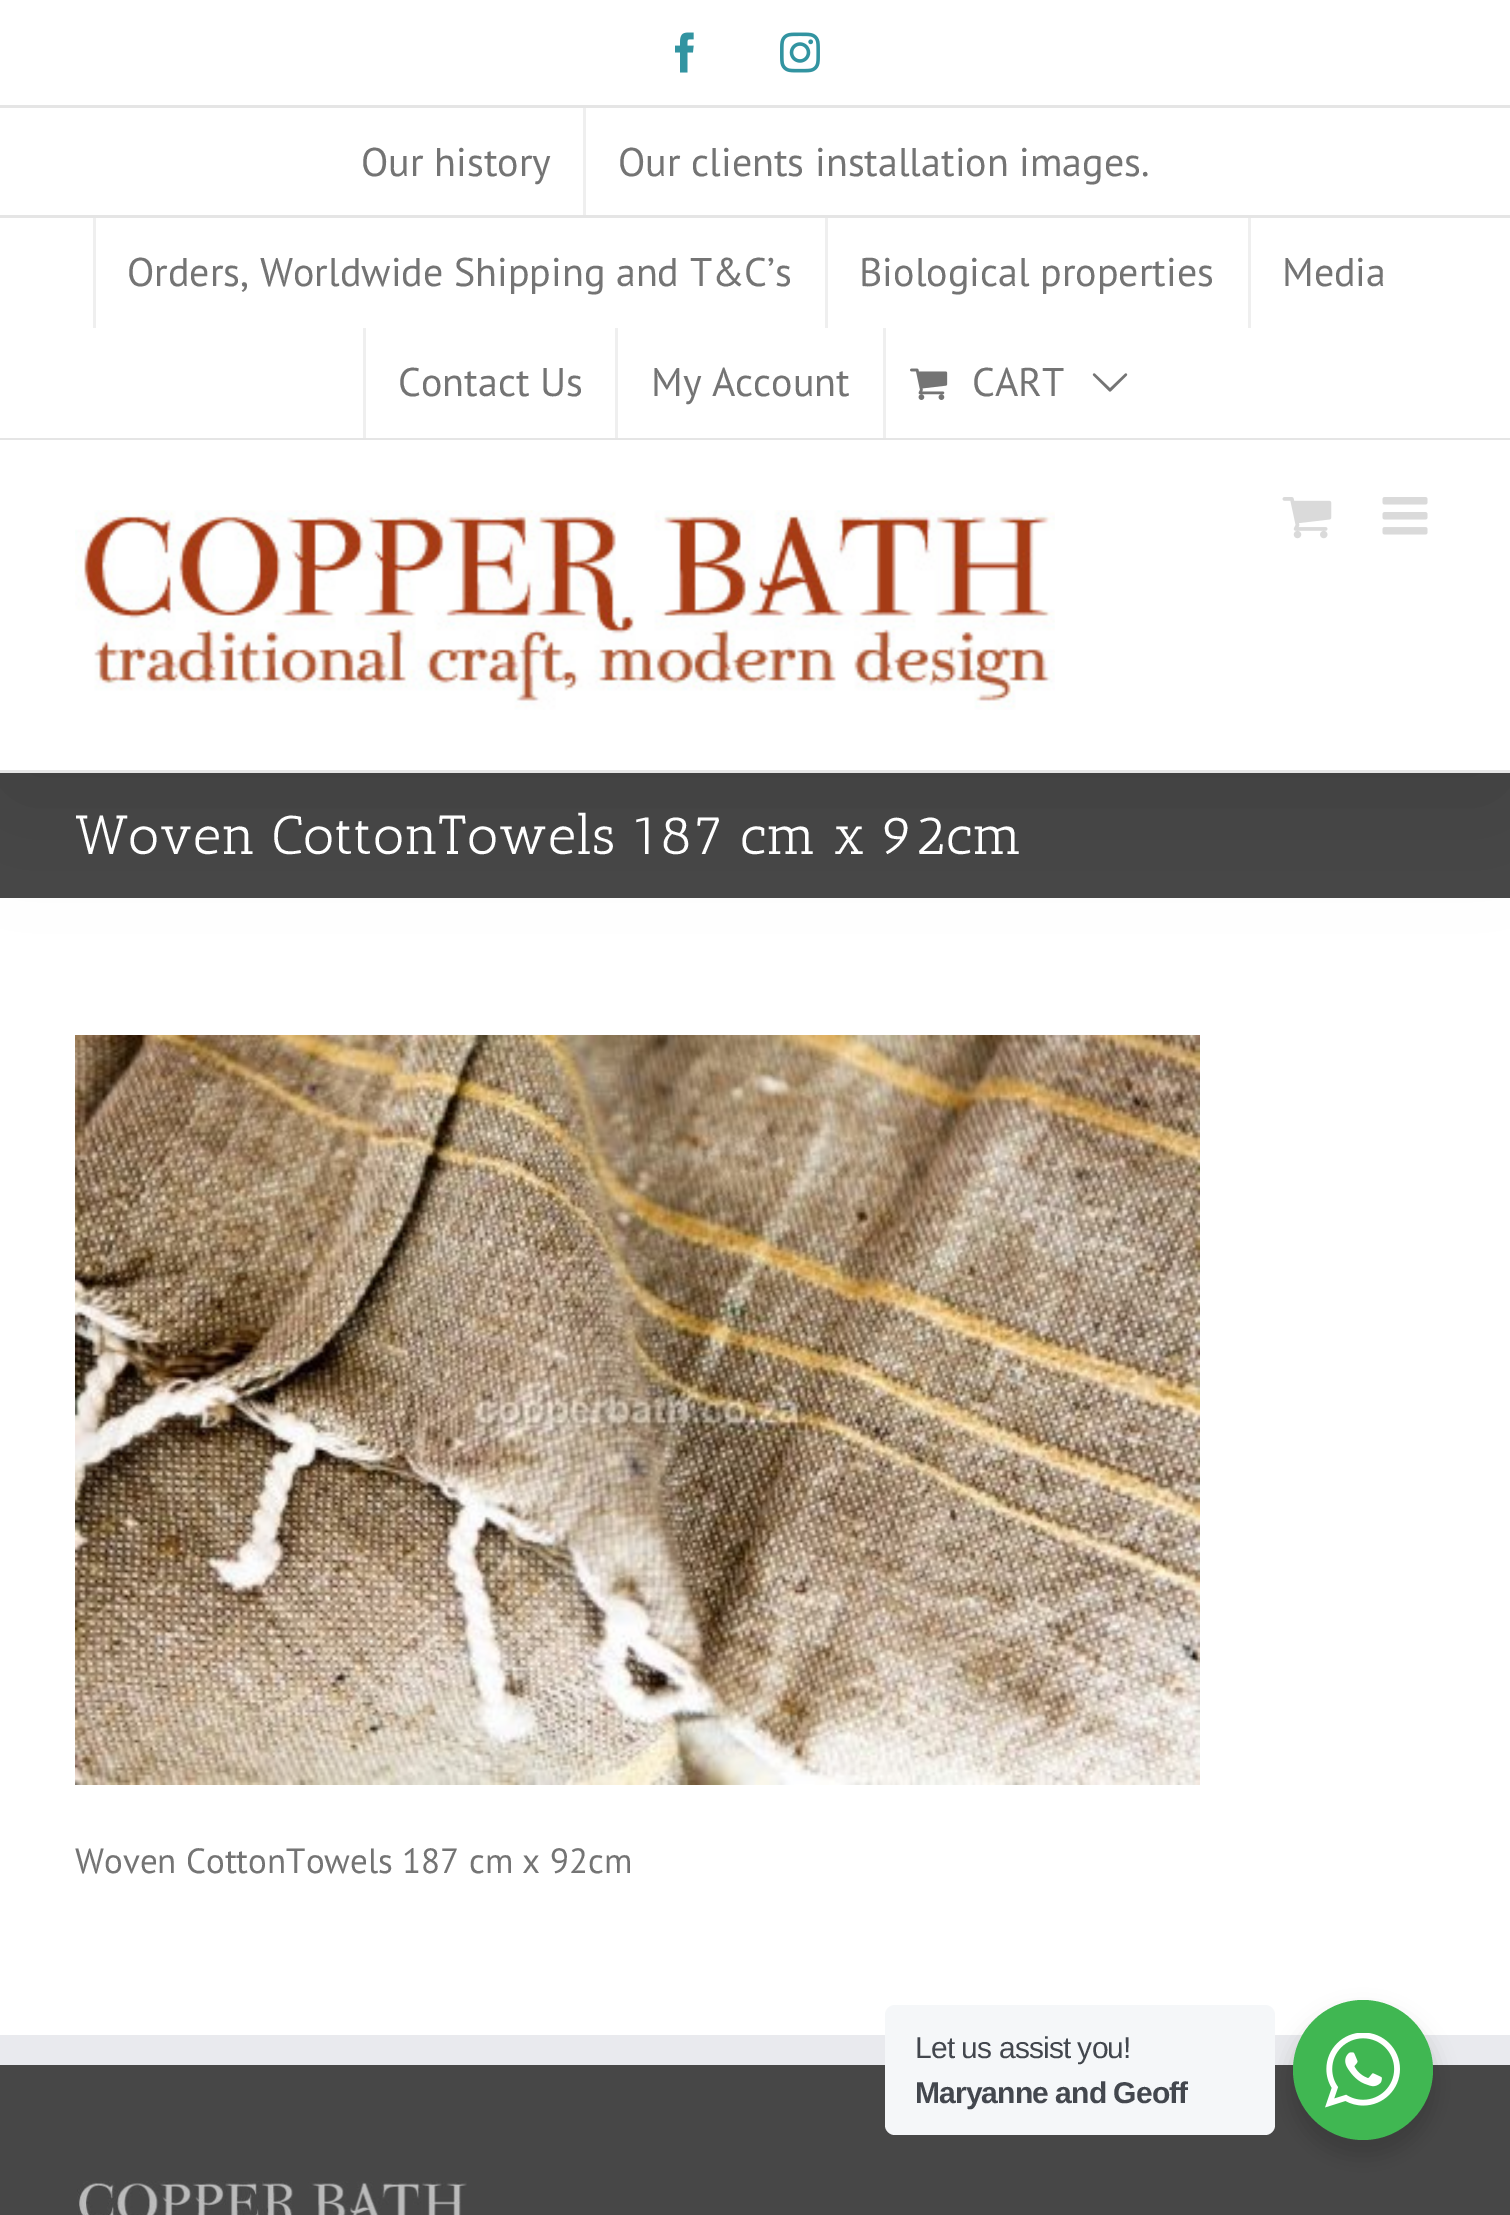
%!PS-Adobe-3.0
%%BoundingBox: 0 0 1510 2215
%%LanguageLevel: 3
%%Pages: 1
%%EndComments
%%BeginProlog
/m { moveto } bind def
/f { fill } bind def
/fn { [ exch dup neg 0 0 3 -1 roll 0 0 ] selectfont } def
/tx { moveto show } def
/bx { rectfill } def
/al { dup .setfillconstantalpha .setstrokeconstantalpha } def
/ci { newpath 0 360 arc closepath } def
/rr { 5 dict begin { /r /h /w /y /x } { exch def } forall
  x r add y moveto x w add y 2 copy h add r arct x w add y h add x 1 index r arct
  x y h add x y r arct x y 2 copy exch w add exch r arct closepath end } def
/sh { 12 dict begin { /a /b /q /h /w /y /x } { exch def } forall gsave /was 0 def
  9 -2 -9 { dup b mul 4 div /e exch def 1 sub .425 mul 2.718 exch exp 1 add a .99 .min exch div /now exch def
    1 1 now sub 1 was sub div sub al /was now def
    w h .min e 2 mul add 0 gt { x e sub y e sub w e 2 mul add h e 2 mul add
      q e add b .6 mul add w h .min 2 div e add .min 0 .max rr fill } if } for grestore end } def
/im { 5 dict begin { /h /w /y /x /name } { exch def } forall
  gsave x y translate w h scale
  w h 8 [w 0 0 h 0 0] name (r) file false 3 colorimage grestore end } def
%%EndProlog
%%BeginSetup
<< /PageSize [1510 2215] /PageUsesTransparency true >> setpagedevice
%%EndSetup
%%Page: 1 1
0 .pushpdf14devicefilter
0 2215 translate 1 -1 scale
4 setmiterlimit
0.278 setgray
0 0 1510 2215 bx
1 setgray
0 898 1510 1137 bx
0 setgray
5 30 1500 763 0 62.5 0.14 sh
1 setgray
0 0 1510 438 bx
0.898 setgray
0 438 1510 2 bx
0 105 1510 3 bx
(image0.raw) 675 32 19 41 im
(image1.raw) 780 32 40 41 im
/PTSans-Regular 40 fn
0.455 setgray
(Our history) 361 176 tx
0.937 setgray
583 108 3 110 bx
0.455 setgray
(Our clients installation images.) 618 176 tx
0.898 setgray
0 215 1510 3 bx
0.937 setgray
93 218 3 110 bx
0.455 setgray
(Orders, Worldwide Shipping and T&C’s) 127 286 tx
0.937 setgray
825 218 3 110 bx
0.455 setgray
(Biological properties) 859 286 tx
0.937 setgray
1248 218 3 110 bx
0.455 setgray
(Media) 1282 286 tx
0.937 setgray
363 328 3 110 bx
0.455 setgray
(Contact Us) 398 396 tx
0.937 setgray
615 328 3 110 bx
0.455 setgray
(My Account) 651 396 tx
0.937 setgray
883 328 3 110 bx
(image2.raw) 910 368 38 32 im
0.455 setgray
(CART) 972 396 tx
(image3.raw) 1092 373 36 19 im
1 setgray
0 440 1510 330 bx
0.898 setgray
0 770 1510 3 bx
(image4.raw) 75 510 980 200 im
(image5.raw) 1282 497 50 42 im
(image6.raw) 1382 497 46 38 im
/AnticSlab-Regular 55 fn
1 setgray
(Woven CottonTowels 187 cm x 92cm) 75 854 tx
(image7.raw) 75 1035 1125 750 im
/PTSans-Regular 35 fn
0.455 setgray
(Woven CottonTowels 187 cm x 92cm) 75 1873 tx
0.914 0.918 0.933 setrgbcolor
0 2035 1510 30 bx
(image8.raw) 77 2181 390 34 im
0 setgray
1288 2010 150 150 75 10 0.14 sh
0.961 0.969 0.976 setrgbcolor
885 2005 390 130 10 rr f
/LiberationSans-Regular 30 fn
0.263 0.278 0.306 setrgbcolor
915 2058 m -0.9 0 (Let us assist you!) ashow
/LiberationSans-Bold 30 fn
915 2103 m -0.9 0 (Maryanne and Geoff) ashow
0.251 0.718 0.322 setrgbcolor
1363 2070 70 ci f
(image9.raw) 1325 2033 75 75 im
.poppdf14devicefilter showpage
%%EOF
